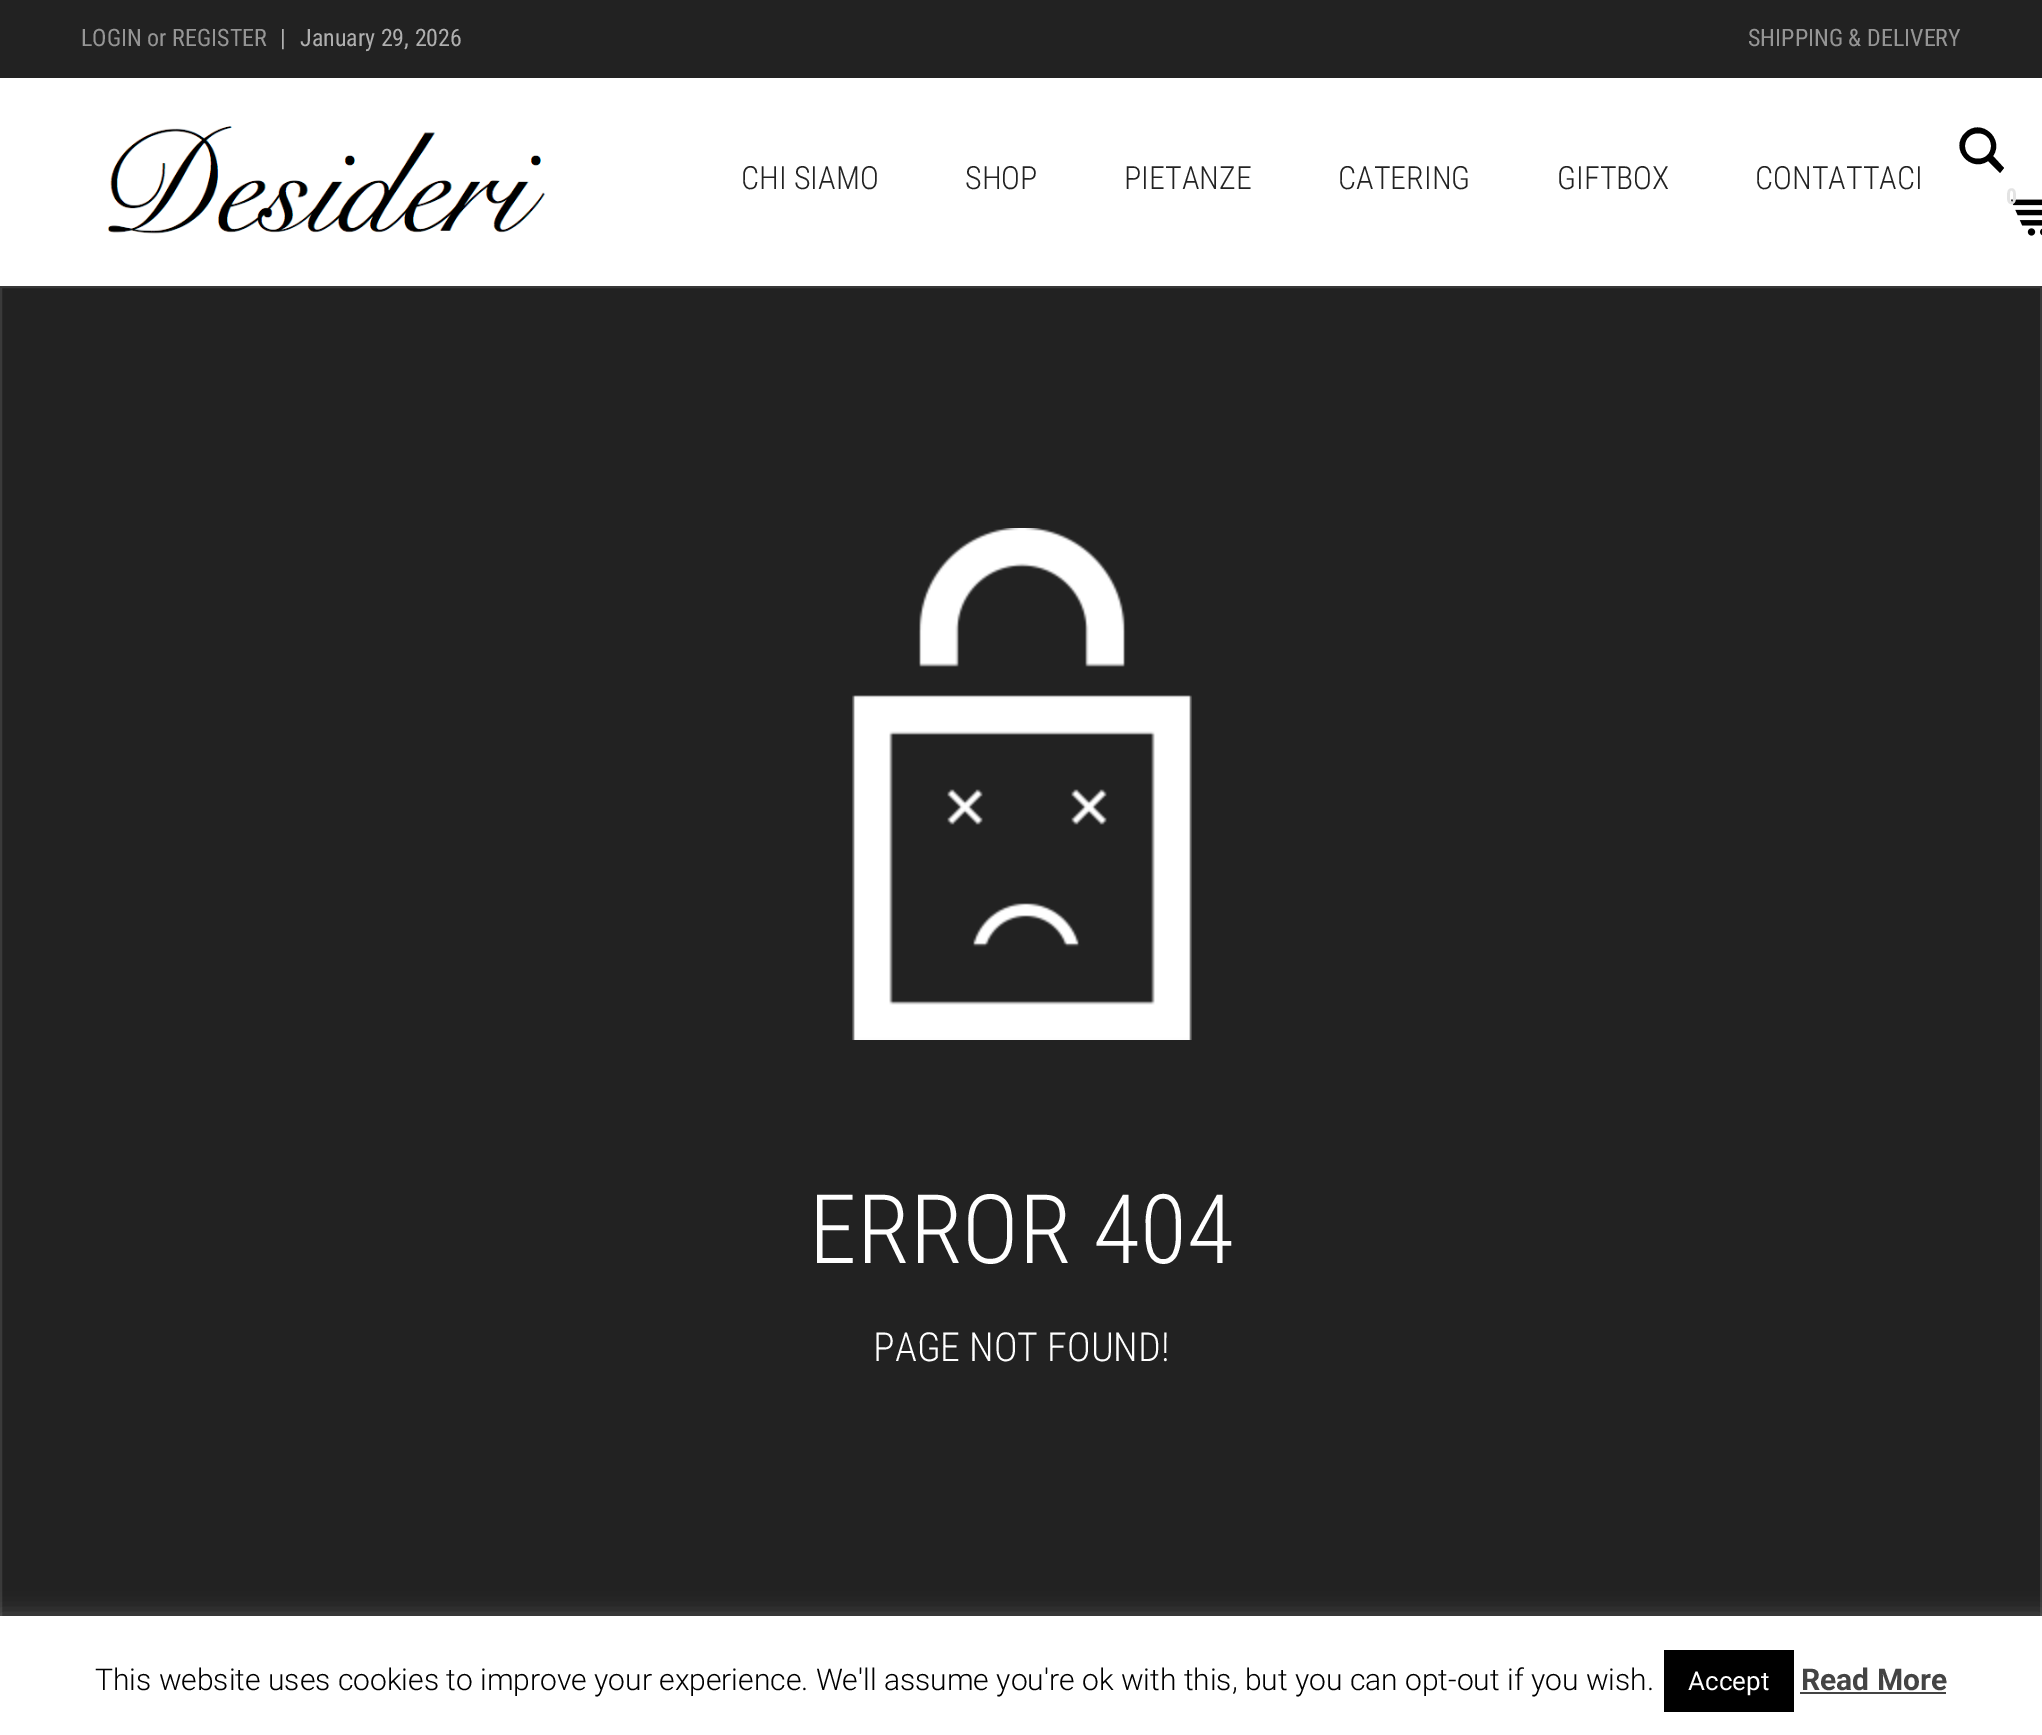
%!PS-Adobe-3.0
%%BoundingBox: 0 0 2042 1735
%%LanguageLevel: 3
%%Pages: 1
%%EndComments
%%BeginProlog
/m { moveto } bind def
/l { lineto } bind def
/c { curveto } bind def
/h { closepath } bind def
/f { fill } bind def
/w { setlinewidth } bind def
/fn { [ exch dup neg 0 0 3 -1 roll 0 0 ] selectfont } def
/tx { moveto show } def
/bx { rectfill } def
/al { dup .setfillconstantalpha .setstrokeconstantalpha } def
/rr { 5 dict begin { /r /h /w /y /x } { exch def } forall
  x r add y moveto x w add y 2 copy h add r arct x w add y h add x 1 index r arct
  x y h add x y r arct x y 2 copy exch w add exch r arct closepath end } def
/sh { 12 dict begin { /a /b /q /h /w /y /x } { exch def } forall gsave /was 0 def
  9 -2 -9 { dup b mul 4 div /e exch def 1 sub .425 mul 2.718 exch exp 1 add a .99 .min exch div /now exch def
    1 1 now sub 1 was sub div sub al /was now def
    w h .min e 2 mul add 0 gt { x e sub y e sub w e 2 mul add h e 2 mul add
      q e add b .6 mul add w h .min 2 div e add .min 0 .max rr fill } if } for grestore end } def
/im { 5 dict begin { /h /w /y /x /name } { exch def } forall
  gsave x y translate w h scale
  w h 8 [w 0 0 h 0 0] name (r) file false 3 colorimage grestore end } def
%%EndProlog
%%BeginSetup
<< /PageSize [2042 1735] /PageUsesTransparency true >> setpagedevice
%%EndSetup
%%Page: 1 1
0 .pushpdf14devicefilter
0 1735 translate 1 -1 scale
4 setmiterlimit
1 setgray
0 0 2042 1735 bx
0.133 setgray
2 288 2038 1328 bx
0.227 setgray
2 w
1 287 2040 1442 rectstroke
0.216 setgray
0 286 2042 2 bx
0.133 setgray
0 0 2042 78 bx
/RobotoCondensed-Regular 24 fn
0.584 setgray
(LOGIN or REGISTER) 81 46 tx
0.686 setgray
(|) 280 46 tx
(January 29, 2026) 300 46 tx
0.584 setgray
(SHIPPING & DELIVERY) 1748 46 tx
(image0.raw) 108 126 438 108 im
/RobotoCondensed-Light 32 fn
0.133 setgray
(CHI SIAMO) 741 189 tx
(SHOP) 965 189 tx
(PIETANZE) 1124 189 tx
(CATERING) 1338 189 tx
(GIFTBOX) 1557 189 tx
(CONTATTACI) 1755 189 tx
0 setgray
2004 168 m 1993 156 l 2005 139 1981 117 1965 133 c 1949 149 1971 173 1988 161 c 2000 173 l h 1965 146 m 1965 129 1991 129 1991 146 c 1991 163 1965 163 1965 146 c h f
(image1.raw) 2010 199 32 37 im
/RobotoCondensed-Bold 22 fn
0.89 setgray
(0) 2006 204 tx
(image2.raw) 852 528 340 512 im
/RobotoCondensed-Light 96 fn
1 setgray
(ERROR 404) 809 1263 tx
/RobotoCondensed-Light 40 fn
(PAGE NOT FOUND!) 873 1361 tx
0.675 0.671 0.671 setrgbcolor
0 1614 2042 120 0 10 0.3 sh
1 setgray
0 1616 2042 119 bx
/Roboto-Light 30 fn
0 setgray
(This website uses cookies to improve your experience. We'll assume you're ok with this, but you can opt-out if you wish.) 95 1690 tx
1664 1650 130 62 bx
/Roboto-Regular 26 fn
1 setgray
(Accept) 1688 1690 tx
/Roboto-Bold 30 fn
0.267 setgray
(Read More) 1801 1690 tx
1800 1692 146 2 bx
.poppdf14devicefilter showpage
%%EOF
